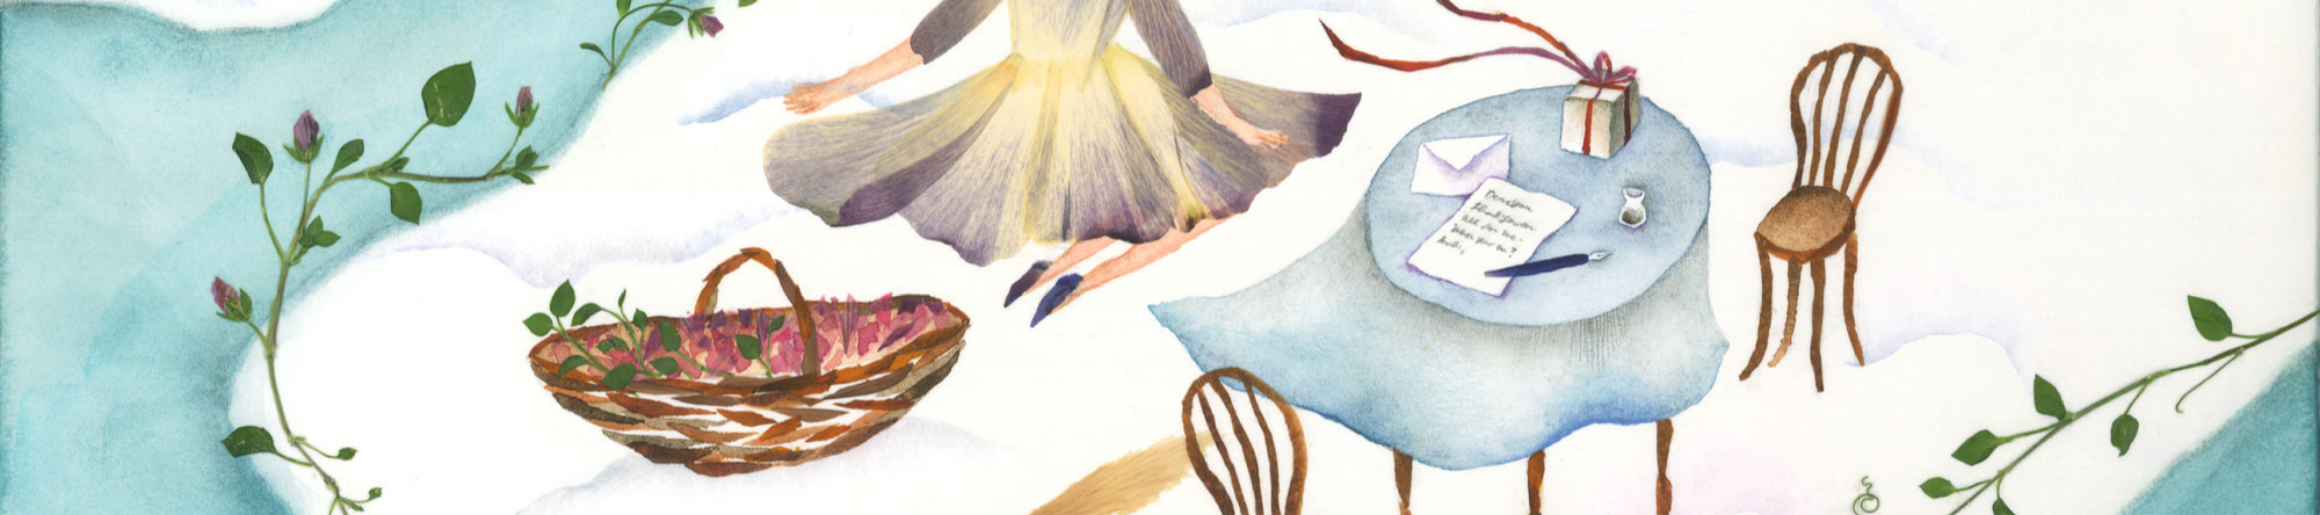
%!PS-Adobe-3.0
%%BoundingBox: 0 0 2320 515
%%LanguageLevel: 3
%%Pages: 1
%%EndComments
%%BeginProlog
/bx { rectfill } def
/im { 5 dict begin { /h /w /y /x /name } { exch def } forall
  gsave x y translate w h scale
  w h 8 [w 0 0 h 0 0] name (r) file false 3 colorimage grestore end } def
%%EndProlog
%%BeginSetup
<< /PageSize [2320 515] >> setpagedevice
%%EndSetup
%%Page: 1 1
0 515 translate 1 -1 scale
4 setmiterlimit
1 setgray
0 0 2320 515 bx
(image0.raw) 0 0 2320 515 im
showpage
%%EOF
